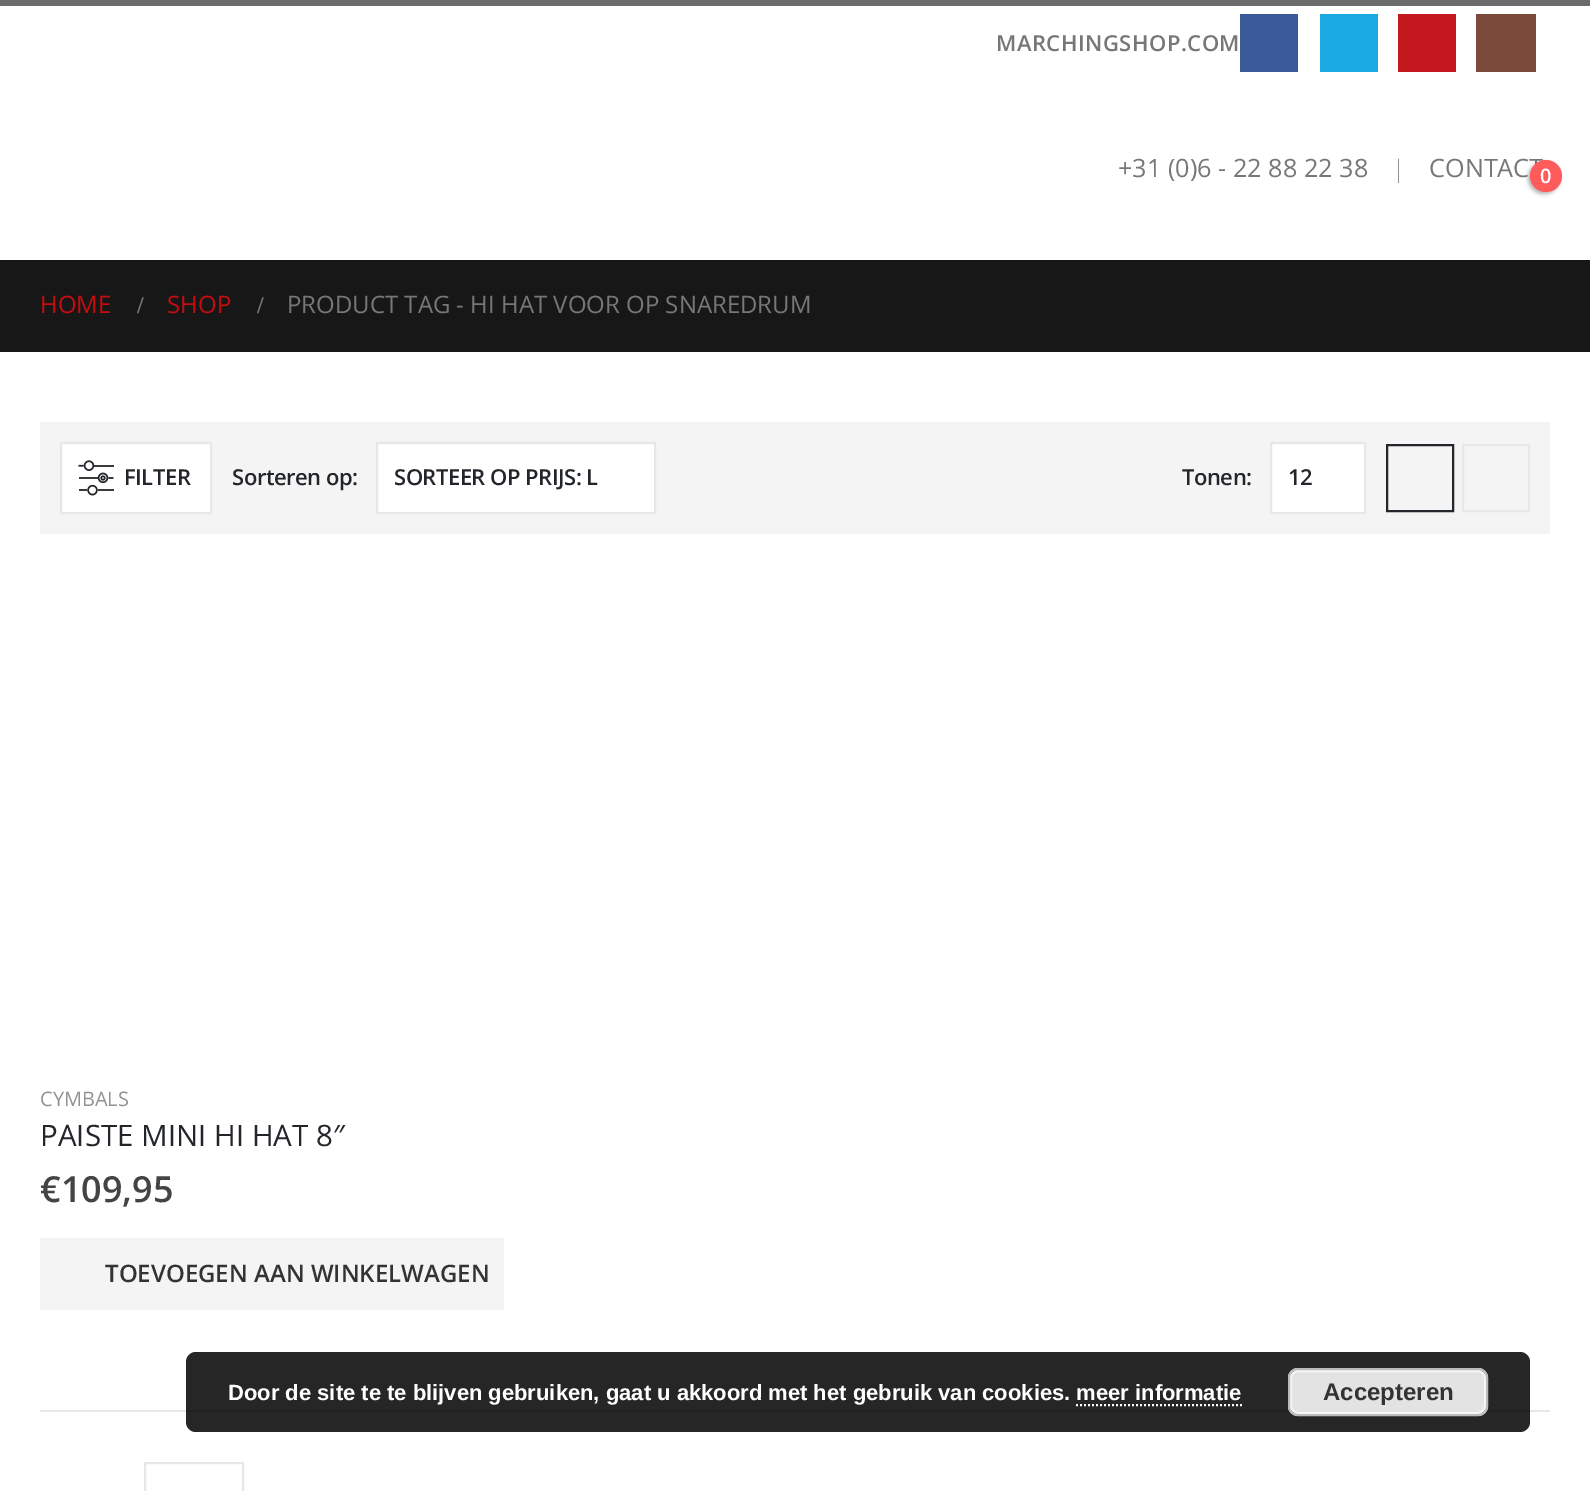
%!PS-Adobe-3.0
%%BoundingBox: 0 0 1590 1491
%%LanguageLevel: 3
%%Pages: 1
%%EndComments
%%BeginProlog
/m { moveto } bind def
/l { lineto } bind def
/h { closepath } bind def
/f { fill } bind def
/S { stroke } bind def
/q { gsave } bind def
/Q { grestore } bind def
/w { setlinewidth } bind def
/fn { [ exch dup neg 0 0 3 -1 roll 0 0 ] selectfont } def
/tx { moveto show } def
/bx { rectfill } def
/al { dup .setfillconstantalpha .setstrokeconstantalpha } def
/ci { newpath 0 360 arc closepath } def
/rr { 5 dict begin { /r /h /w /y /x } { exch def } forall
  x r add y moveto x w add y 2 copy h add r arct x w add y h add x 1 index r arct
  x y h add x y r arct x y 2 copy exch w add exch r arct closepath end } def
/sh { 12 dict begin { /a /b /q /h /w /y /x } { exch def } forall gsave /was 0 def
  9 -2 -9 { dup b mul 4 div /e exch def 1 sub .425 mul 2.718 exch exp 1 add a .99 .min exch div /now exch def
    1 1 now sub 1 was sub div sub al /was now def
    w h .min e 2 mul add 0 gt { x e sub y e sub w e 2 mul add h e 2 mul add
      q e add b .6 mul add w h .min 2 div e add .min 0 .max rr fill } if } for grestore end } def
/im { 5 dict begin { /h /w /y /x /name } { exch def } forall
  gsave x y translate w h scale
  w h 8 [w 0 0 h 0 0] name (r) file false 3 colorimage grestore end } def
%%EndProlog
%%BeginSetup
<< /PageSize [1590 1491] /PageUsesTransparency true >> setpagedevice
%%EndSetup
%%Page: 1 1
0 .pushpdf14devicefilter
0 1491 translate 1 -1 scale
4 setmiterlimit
1 setgray
0 0 1590 1491 bx
0.42 setgray
0 0 1590 6 bx
/OpenSans-SemiBold 22 fn
0.467 setgray
996 51 m 0.5 0 (MARCHINGSHOP.COM) ashow
0.231 0.353 0.604 setrgbcolor
1240 14 58 58 bx
0.102 0.663 0.882 setrgbcolor
1320 14 58 58 bx
0.765 0.098 0.118 setrgbcolor
1398 14 58 58 bx
0.486 0.29 0.227 setrgbcolor
1476 14 60 58 bx
/OpenSans-Regular 25.25 fn
0.467 setgray
(+31 \(0\)6 - 22 88 22 38) 1118 177 tx
/OpenSans-Light 24 fn
0.573 setgray
(|) 1392 177 tx
/OpenSans-Regular 25.25 fn
0.467 setgray
(CONTACT) 1429 177 tx
0 setgray
1528 162 32 32 16 2 0.3 sh
1 0.357 0.357 setrgbcolor
1546 176 16 ci f
/OpenSans-SemiBold 20 fn
1 setgray
(0) 1540 183 tx
0.09 setgray
0 260 1590 92 bx
/OpenSans-Regular 24 fn
0.773 0.047 0.055 setrgbcolor
(HOME) 40 313 tx
/LiberationSerif-Bold 24 fn
0.467 setgray
(/) 137 313 tx
/OpenSans-Regular 24 fn
0.773 0.047 0.055 setrgbcolor
(SHOP) 167 313 tx
/LiberationSerif-Bold 24 fn
0.467 setgray
(/) 257 313 tx
/OpenSans-Regular 24 fn
(PRODUCT TAG - HI HAT VOOR OP SNAREDRUM) 287 313 tx
0.957 setgray
40 422 1510 112 bx
1 setgray
61 443 m 211 443 l 211 513 l 61 513 l h q f Q
0.906 setgray
2 w
S
(image0.raw) 78 460 36 36 im
/OpenSans-SemiBold 22 fn
0.133 0.145 0.161 setrgbcolor
124 485 m -0.5 0 (FILTER) ashow
232 485 m -0.5 0 (Sorteren op:) ashow
1 setgray
377 443 m 655 443 l 655 513 l 377 513 l h q f Q
0.906 setgray
S
0.133 0.145 0.161 setrgbcolor
394 485 m -0.5 0 (SORTEER OP PRIJS: L) ashow
1182 485 m -0.5 0 (Tonen:) ashow
1 setgray
1271 443 m 1365 443 l 1365 513 l 1271 513 l h q f Q
0.906 setgray
S
0.133 0.145 0.161 setrgbcolor
1288 485 m -0.5 0 (12) ashow
1387 445 66 66 rectstroke
0.906 setgray
1463 445 66 66 rectstroke
/OpenSans-Regular 20 fn
0.573 setgray
(CYMBALS) 40 1106 tx
/OpenSans-Regular 29.5 fn
0.133 0.145 0.161 setrgbcolor
(PAISTE MINI HI HAT 8″) 40 1146 tx
/OpenSans-SemiBold 36 fn
0.267 setgray
(€109,95) 40 1202 tx
0.957 setgray
40 1238 464 72 bx
/OpenSans-SemiBold 24 fn
0.2 setgray
(TOEVOEGEN AAN WINKELWAGEN) 105 1282 tx
0.906 setgray
40 1410 1510 2 bx
145 1463 98 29 rectstroke
0.85 al
0 setgray
186 1352 1344 80 10 rr f
/LiberationSans-Bold 22 fn
1 al
1 setgray
(Door de site te te blijven gebruiken, gaat u akkoord met het gebruik van cookies. meer informatie) 228 1400 tx
0.89 setgray
1288 1368 200 48 10 rr f
0.965 setgray
1291 1371 194 42 7 rr S
0.733 setgray
1289 1369 198 46 9 rr S
/LiberationSans-Bold 24 fn
0.2 setgray
(Accepteren) 1323 1400 tx
1 setgray
[2 2] 0 setdash
1076 1405 m 1242 1405 l S
.poppdf14devicefilter showpage
%%EOF
